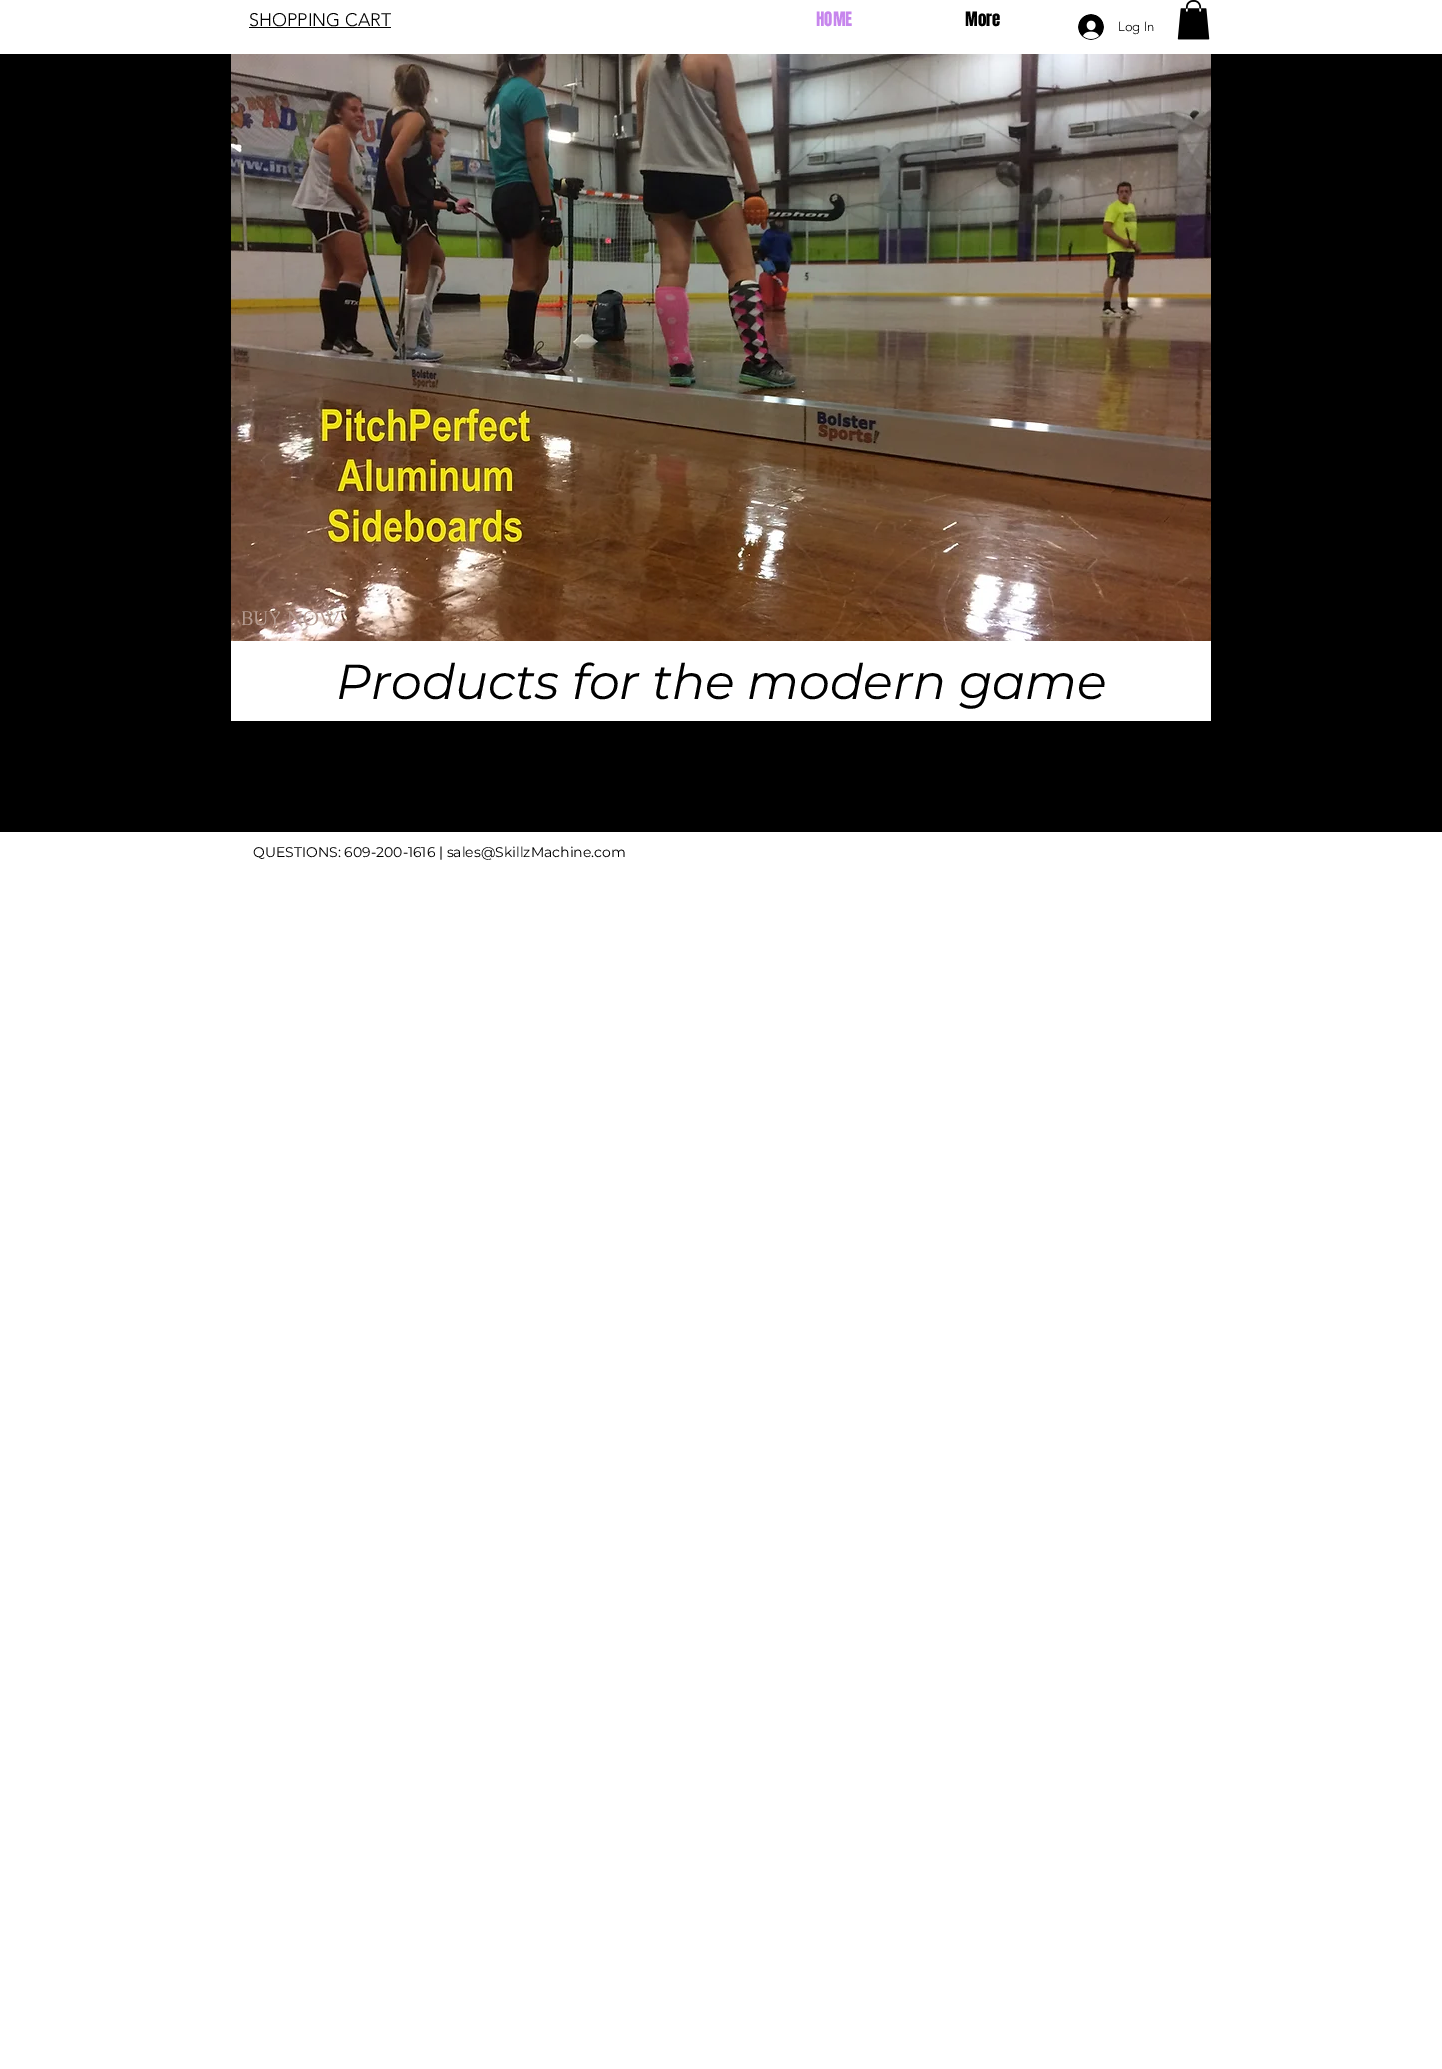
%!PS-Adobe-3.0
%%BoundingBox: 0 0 1442 2069
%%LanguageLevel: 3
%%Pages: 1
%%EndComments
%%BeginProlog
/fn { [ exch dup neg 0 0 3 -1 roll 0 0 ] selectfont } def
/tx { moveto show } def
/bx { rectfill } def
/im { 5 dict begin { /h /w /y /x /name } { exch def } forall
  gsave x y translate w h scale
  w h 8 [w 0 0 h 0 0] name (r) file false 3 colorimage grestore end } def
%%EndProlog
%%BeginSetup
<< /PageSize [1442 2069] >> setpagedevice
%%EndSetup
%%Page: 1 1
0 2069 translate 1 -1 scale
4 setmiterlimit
1 setgray
0 0 1442 2069 bx
/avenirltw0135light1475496-Light 18 fn
0 setgray
(SHOPPING CART) 249 26 tx
249 27 142 1 bx
/Anton-Regular 17 fn
0.78 0.525 0.929 setrgbcolor
(HOME) 816 26 tx
0 setgray
(More) 965 26 tx
(image0.raw) 1078 14 26 26 im
/avenirltw0135light1475496-Light 13 fn
(Log In) 1118 31 tx
(image1.raw) 1177 0 33 40 im
0 54 1442 778 bx
(image2.raw) 231 54 980 587 im
/Caudex-Regular 20 fn
0.706 0.604 0.561 setrgbcolor
(BUY NOW) 241 625 tx
1 setgray
231 641 980 80 bx
/Montserrat-Italic 49 fn
0 setgray
(Products for the modern game) 336 699 tx
/Montserrat-Regular 14 fn
(QUESTIONS: 609-200-1616 | sales@SkillzMachine.com) 253 857 tx
showpage
%%EOF
